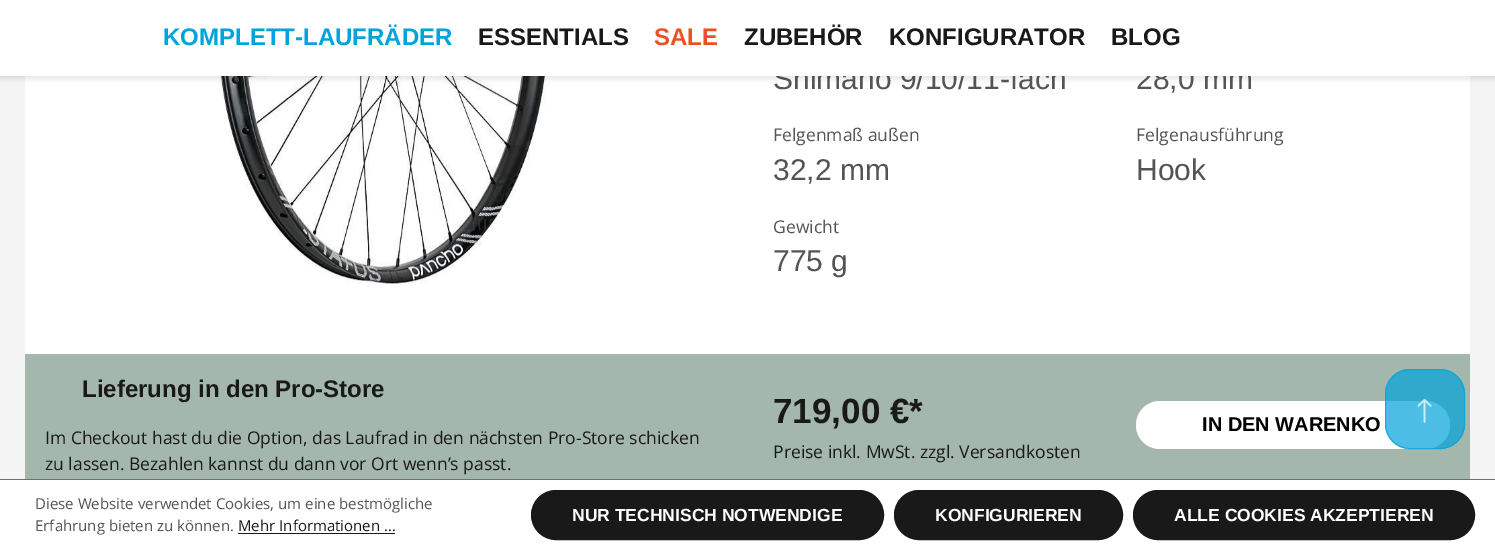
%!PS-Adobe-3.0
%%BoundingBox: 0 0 1495 550
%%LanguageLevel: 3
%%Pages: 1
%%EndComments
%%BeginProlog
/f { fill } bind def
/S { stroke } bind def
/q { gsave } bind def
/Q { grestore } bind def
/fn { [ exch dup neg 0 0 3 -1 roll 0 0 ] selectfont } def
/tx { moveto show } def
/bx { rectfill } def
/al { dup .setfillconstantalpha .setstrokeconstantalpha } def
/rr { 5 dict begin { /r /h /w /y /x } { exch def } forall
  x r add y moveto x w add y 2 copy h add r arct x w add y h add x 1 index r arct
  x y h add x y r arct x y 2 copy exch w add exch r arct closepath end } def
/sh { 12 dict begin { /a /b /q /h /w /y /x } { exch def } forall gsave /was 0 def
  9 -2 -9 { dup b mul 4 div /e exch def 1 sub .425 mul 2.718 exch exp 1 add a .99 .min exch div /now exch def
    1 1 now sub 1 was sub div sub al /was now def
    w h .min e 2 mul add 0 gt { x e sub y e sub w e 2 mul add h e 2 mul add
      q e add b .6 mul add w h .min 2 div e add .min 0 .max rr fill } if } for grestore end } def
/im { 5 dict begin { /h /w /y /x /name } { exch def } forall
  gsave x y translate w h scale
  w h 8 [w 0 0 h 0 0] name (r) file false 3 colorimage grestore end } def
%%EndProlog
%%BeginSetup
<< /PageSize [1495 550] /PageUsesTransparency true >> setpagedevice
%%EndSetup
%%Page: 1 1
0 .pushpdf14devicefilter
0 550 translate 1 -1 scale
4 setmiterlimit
0.957 setgray
0 0 1495 550 bx
1 setgray
25 76 1445 278 bx
(image0.raw) 218 76 333 208 im
0 setgray
-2 -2 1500 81 0 3 0.1 sh
/LiberationSans-Regular 30 fn
0.329 setgray
(Shimano 9/10/11-fach) 773 89 tx
(28,0 mm) 1136 89 tx
1 setgray
0 0 1495 76 bx
/LiberationSans-Bold 24 fn
0 0.639 0.855 setrgbcolor
(KOMPLETT-LAUFRÄDER) 163 45 tx
0.102 0.098 0.098 setrgbcolor
(ESSENTIALS) 478 45 tx
0.933 0.314 0.149 setrgbcolor
(SALE) 654 45 tx
0.102 0.098 0.098 setrgbcolor
(ZUBEHÖR) 744 45 tx
(KONFIGURATOR) 889 45 tx
(BLOG) 1111 45 tx
/OpenSans-Regular 17.5 fn
0.329 setgray
(Felgenmaß außen) 773 141 tx
/LiberationSans-Regular 30 fn
(32,2 mm) 773 180 tx
/OpenSans-Regular 17.5 fn
(Felgenausführung) 1136 141 tx
/LiberationSans-Regular 30 fn
(Hook) 1136 180 tx
/OpenSans-Regular 17.5 fn
(Gewicht) 773 233 tx
/LiberationSans-Regular 30 fn
(775 g) 773 271 tx
0.643 0.718 0.678 setrgbcolor
25 354 1445 125 bx
/LiberationSans-Bold 24 fn
0.102 0.098 0.098 setrgbcolor
(Lieferung in den Pro-Store) 82 397 tx
/OpenSans-Regular 17.5 fn
(Im Checkout hast du die Option, das Laufrad in den nächsten Pro-Store schicken) 45 444 tx
(zu lassen. Bezahlen kannst du dann vor Ort wenn’s passt.) 45 470 tx
/LiberationSans-Bold 35 fn
(719,00 €*) 773 423 tx
/OpenSans-Regular 17.5 fn
(Preise inkl. MwSt. zzgl. Versandkosten) 773 458 tx
1 setgray
1136 401 314 48 24 rr f
/LiberationSans-Bold 20 fn
0 setgray
(IN DEN WARENKO) 1202 431 tx
0.7 al
0 0.639 0.855 setrgbcolor
1385 369 80 80 25 rr f
1385.5 369.5 79 79 24.5 rr S
1 al
(image1.raw) 1417 399 15 24 im
1 setgray
0 480 1495 70 bx
0.427 0.447 0.431 setrgbcolor
0 479 1495 1 bx
/OpenSans-Regular 15 fn
0.329 setgray
(Diese Website verwendet Cookies, um eine bestmögliche) 35 509 tx
(Erfahrung bieten zu können.) 35 531 tx
0.102 0.098 0.098 setrgbcolor
(Mehr Informationen ...) 238 531 tx
238 533 157 1 bx
531.5 490.5 352 49 24.5 rr q f Q
S
/LiberationSans-Bold 17.5 fn
1 setgray
(NUR TECHNISCH NOTWENDIGE) 572 521 tx
0.102 0.098 0.098 setrgbcolor
894.5 490.5 228 49 24.5 rr q f Q
S
1 setgray
(KONFIGURIEREN) 935 521 tx
0.102 0.098 0.098 setrgbcolor
1133.5 490.5 341 49 24.5 rr q f Q
S
1 setgray
(ALLE COOKIES AKZEPTIEREN) 1174 521 tx
.poppdf14devicefilter showpage
%%EOF
